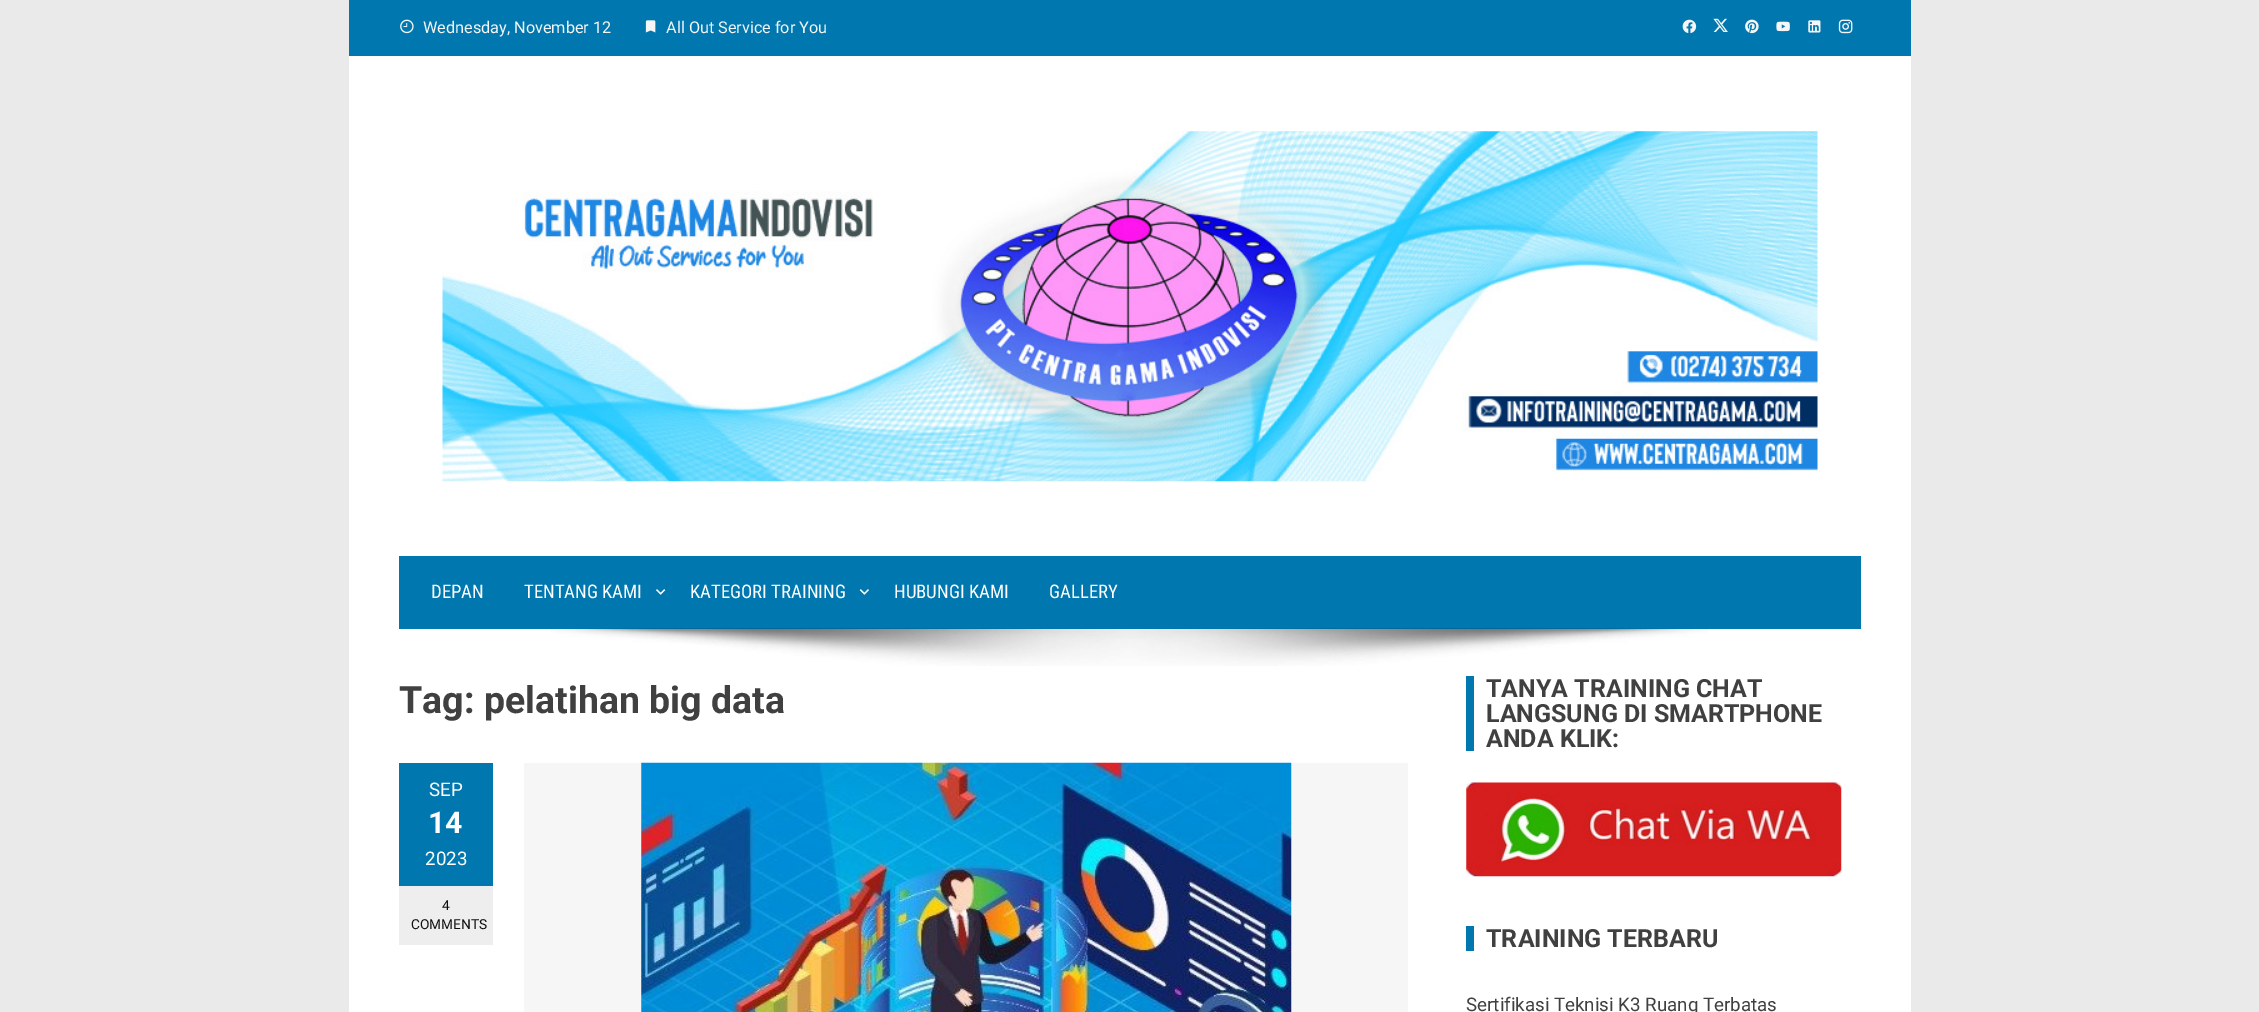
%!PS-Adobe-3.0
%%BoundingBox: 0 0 2259 1012
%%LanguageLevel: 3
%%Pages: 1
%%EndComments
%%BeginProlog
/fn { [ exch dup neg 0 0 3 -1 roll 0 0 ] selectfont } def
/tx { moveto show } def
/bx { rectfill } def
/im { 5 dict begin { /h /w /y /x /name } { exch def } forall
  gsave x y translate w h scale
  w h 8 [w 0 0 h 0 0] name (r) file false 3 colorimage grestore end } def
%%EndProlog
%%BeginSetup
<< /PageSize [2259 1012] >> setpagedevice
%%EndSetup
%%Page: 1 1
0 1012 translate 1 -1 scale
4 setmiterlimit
0.918 setgray
0 0 2259 1012 bx
1 setgray
349 56 1562 956 bx
0 0.471 0.686 setrgbcolor
349 0 1562 56 bx
(image0.raw) 400 19 14 15 im
/Roboto-Regular 16.25 fn
0.965 setgray
(Wednesday, November 12) 423 33 tx
(image1.raw) 645 20 11 13 im
(All Out Service for You) 666 33 tx
(image2.raw) 1682 19 15 15 im
(image3.raw) 1713 18 15 14 im
(image4.raw) 1745 19 14 15 im
(image5.raw) 1776 21 14 11 im
(image6.raw) 1808 20 13 13 im
(image7.raw) 1838 19 15 15 im
(image8.raw) 442 131 1376 351 im
0 0.471 0.686 setrgbcolor
399 556 1462 73 bx
/RobotoCondensed-Regular 18.75 fn
1 setgray
(DEPAN) 431 598 tx
(TENTANG KAMI) 524 598 tx
(image9.raw) 656 589 10 6 im
(KATEGORI TRAINING) 690 598 tx
(image10.raw) 859 589 10 6 im
(HUBUNGI KAMI) 894 598 tx
(GALLERY) 1049 598 tx
(image11.raw) 551 628 1157 38 im
/Roboto-Bold 37.5 fn
0.251 setgray
(Tag: pelatihan big data) 399 713 tx
0 0.471 0.686 setrgbcolor
399 763 94 123 bx
/Roboto-Regular 18.75 fn
1 setgray
(SEP) 429 796 tx
/Roboto-Bold 30 fn
(14) 428 833 tx
/Roboto-Regular 18.75 fn
(2023) 425 865 tx
0.933 setgray
399 886 94 59 bx
/Roboto-Regular 13.75 fn
0.055 setgray
(4) 442 910 tx
(COMMENTS) 411 929 tx
0.965 setgray
524 763 884 249 bx
(image12.raw) 641 762 651 250 im
0 0.471 0.686 setrgbcolor
1466 676 8 75 bx
/Roboto-Bold 25 fn
0.251 setgray
(TANYA TRAINING CHAT) 1486 697 tx
(LANGSUNG DI SMARTPHONE) 1486 722 tx
(ANDA KLIK:) 1486 747 tx
(image13.raw) 1466 782 376 95 im
0 0.471 0.686 setrgbcolor
1466 926 8 25 bx
0.251 setgray
(TRAINING TERBARU) 1486 947 tx
/Roboto-Regular 18.75 fn
(Sertifikasi Teknisi K3 Ruang Terbatas) 1466 1011 tx
showpage
%%EOF
